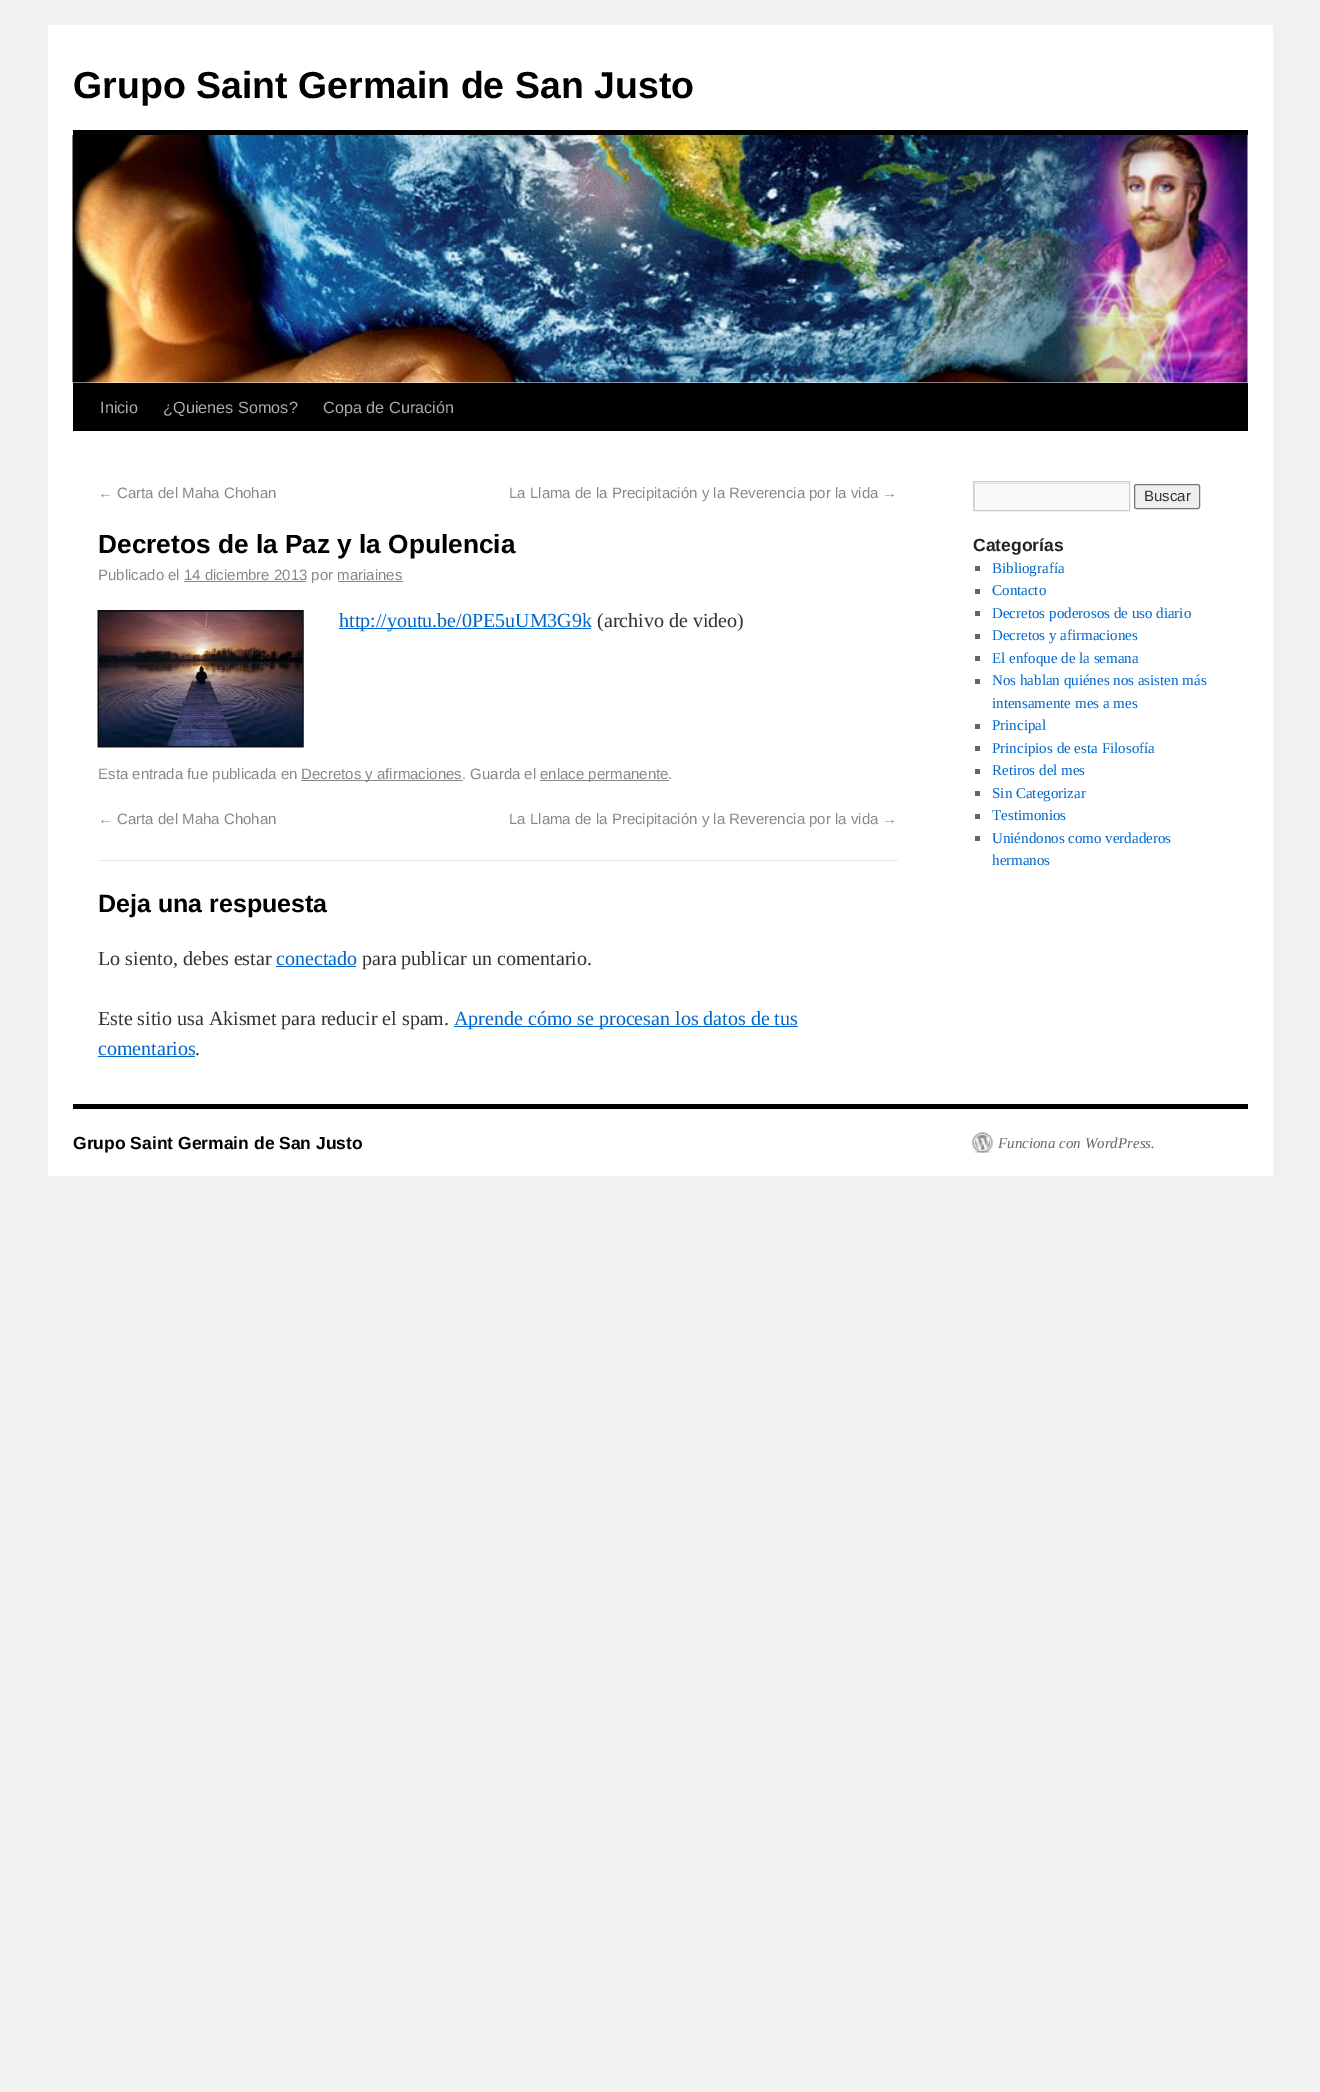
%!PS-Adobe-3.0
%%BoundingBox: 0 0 1320 2092
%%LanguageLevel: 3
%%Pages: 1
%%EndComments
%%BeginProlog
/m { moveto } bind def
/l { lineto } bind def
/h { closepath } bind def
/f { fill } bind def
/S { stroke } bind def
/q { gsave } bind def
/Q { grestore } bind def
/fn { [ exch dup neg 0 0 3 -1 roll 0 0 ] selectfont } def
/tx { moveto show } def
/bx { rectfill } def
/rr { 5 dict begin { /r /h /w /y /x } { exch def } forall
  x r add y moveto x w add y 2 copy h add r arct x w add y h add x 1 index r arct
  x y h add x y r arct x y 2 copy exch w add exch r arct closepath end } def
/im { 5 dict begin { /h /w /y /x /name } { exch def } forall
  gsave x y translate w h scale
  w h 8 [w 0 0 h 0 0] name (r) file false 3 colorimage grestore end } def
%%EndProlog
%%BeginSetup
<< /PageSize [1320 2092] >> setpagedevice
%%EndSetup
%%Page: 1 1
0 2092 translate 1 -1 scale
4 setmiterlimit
0.945 setgray
0 0 1320 2092 bx
1 setgray
48 25 1225 1151 bx
/LiberationSans-Bold 37.5 fn
0 setgray
(Grupo Saint Germain de San Justo) 73 98 tx
73 130 1175 5 bx
73 383 1175 48 bx
(image0.raw) 72 135 1176 248 im
/LiberationSans-Regular 16.25 fn
0.667 setgray
(Inicio) 100 413 tx
(¿Quienes Somos?) 163 413 tx
(Copa de Curación) 323 413 tx
/LiberationSans-Regular 15 fn
0.533 setgray
(← Carta del Maha Chohan) 98 498 tx
(La Llama de la Precipitación y la Reverencia por la vida →) 509 498 tx
/LiberationSans-Bold 26.25 fn
0 setgray
(Decretos de la Paz y la Opulencia) 98 553 tx
/LiberationSans-Regular 15 fn
0.533 setgray
(Publicado el 14 diciembre 2013 por mariaines) 98 580 tx
184 581 122 1 bx
338 581 65 1 bx
(image1.raw) 97 610 207 138 im
0 0.4 0.8 setrgbcolor
339 628 252 1 bx
/LiberationSerif-Regular 20 fn
(http://youtu.be/0PE5uUM3G9k) 339 627 tx
0.2 setgray
(\(archivo de video\)) 597 627 tx
/LiberationSans-Regular 15 fn
0.533 setgray
(Esta entrada fue publicada en) 98 779 tx
301 780 162 1 bx
(Decretos y afirmaciones. Guarda el) 301 779 tx
540 780 129 1 bx
(enlace permanente.) 540 779 tx
(← Carta del Maha Chohan) 98 824 tx
(La Llama de la Precipitación y la Reverencia por la vida →) 509 824 tx
0.906 setgray
98 860 800 1 bx
/LiberationSans-Bold 25 fn
0 setgray
(Deja una respuesta) 98 912 tx
/LiberationSerif-Regular 20 fn
0.2 setgray
(Lo siento, debes estar) 98 965 tx
0 0.4 0.8 setrgbcolor
(conectado) 276 965 tx
276 966 80 1 bx
0.2 setgray
(para publicar un comentario.) 362 965 tx
(Este sitio usa Akismet para reducir el spam.) 98 1025 tx
0 0.4 0.8 setrgbcolor
454 1026 344 1 bx
(Aprende cómo se procesan los datos de tus) 454 1025 tx
(comentarios) 98 1055 tx
98 1056 97 1 bx
0.2 setgray
(.) 195 1055 tx
0.976 setgray
974 482 155 28 bx
q
974 483 155 27 rectclip
0.878 setgray
850 359 m 1252 359 l 1252 634 l 850 634 l h 975 484 m 1130 484 l 1130 511 l 975 511 l h eofill
Q
0.8 setgray
973.5 481.5 156 29 rectstroke
0.937 setgray
1134.5 484.5 65 24 2 rr q f Q
0.463 setgray
S
/LiberationSans-Regular 15 fn
0.2 setgray
(Buscar) 1144 501 tx
/LiberationSans-Bold 17.5 fn
0.133 setgray
(Categorías) 973 551 tx
0.4 setgray
975 566 5 5 bx
/LiberationSerif-Regular 15 fn
0 0.4 0.8 setrgbcolor
(Bibliografía) 992 573 tx
0.4 setgray
975 589 5 5 bx
0 0.4 0.8 setrgbcolor
(Contacto) 992 595 tx
0.4 setgray
975 611 5 5 bx
0 0.4 0.8 setrgbcolor
(Decretos poderosos de uso diario) 992 618 tx
0.4 setgray
975 634 5 5 bx
0 0.4 0.8 setrgbcolor
(Decretos y afirmaciones) 992 640 tx
0.4 setgray
975 656 5 5 bx
0 0.4 0.8 setrgbcolor
(El enfoque de la semana) 992 663 tx
0.4 setgray
975 679 5 5 bx
0 0.4 0.8 setrgbcolor
(Nos hablan quiénes nos asisten más) 992 685 tx
(intensamente mes a mes) 992 708 tx
0.4 setgray
975 724 5 5 bx
0 0.4 0.8 setrgbcolor
(Principal) 992 730 tx
0.4 setgray
975 746 5 5 bx
0 0.4 0.8 setrgbcolor
(Principios de esta Filosofía) 992 753 tx
0.4 setgray
975 769 5 5 bx
0 0.4 0.8 setrgbcolor
(Retiros del mes) 992 775 tx
0.4 setgray
975 791 5 5 bx
0 0.4 0.8 setrgbcolor
(Sin Categorizar) 992 798 tx
0.4 setgray
975 814 5 5 bx
0 0.4 0.8 setrgbcolor
(Testimonios) 992 820 tx
0.4 setgray
975 836 5 5 bx
0 0.4 0.8 setrgbcolor
(Uniéndonos como verdaderos) 992 843 tx
(hermanos) 992 865 tx
0 setgray
73 1104 1175 5 bx
/LiberationSans-Bold 17.5 fn
(Grupo Saint Germain de San Justo) 73 1149 tx
(image2.raw) 972 1132 21 21 im
/LiberationSerif-Italic 15 fn
0.4 setgray
(Funciona con WordPress.) 998 1148 tx
showpage
%%EOF
